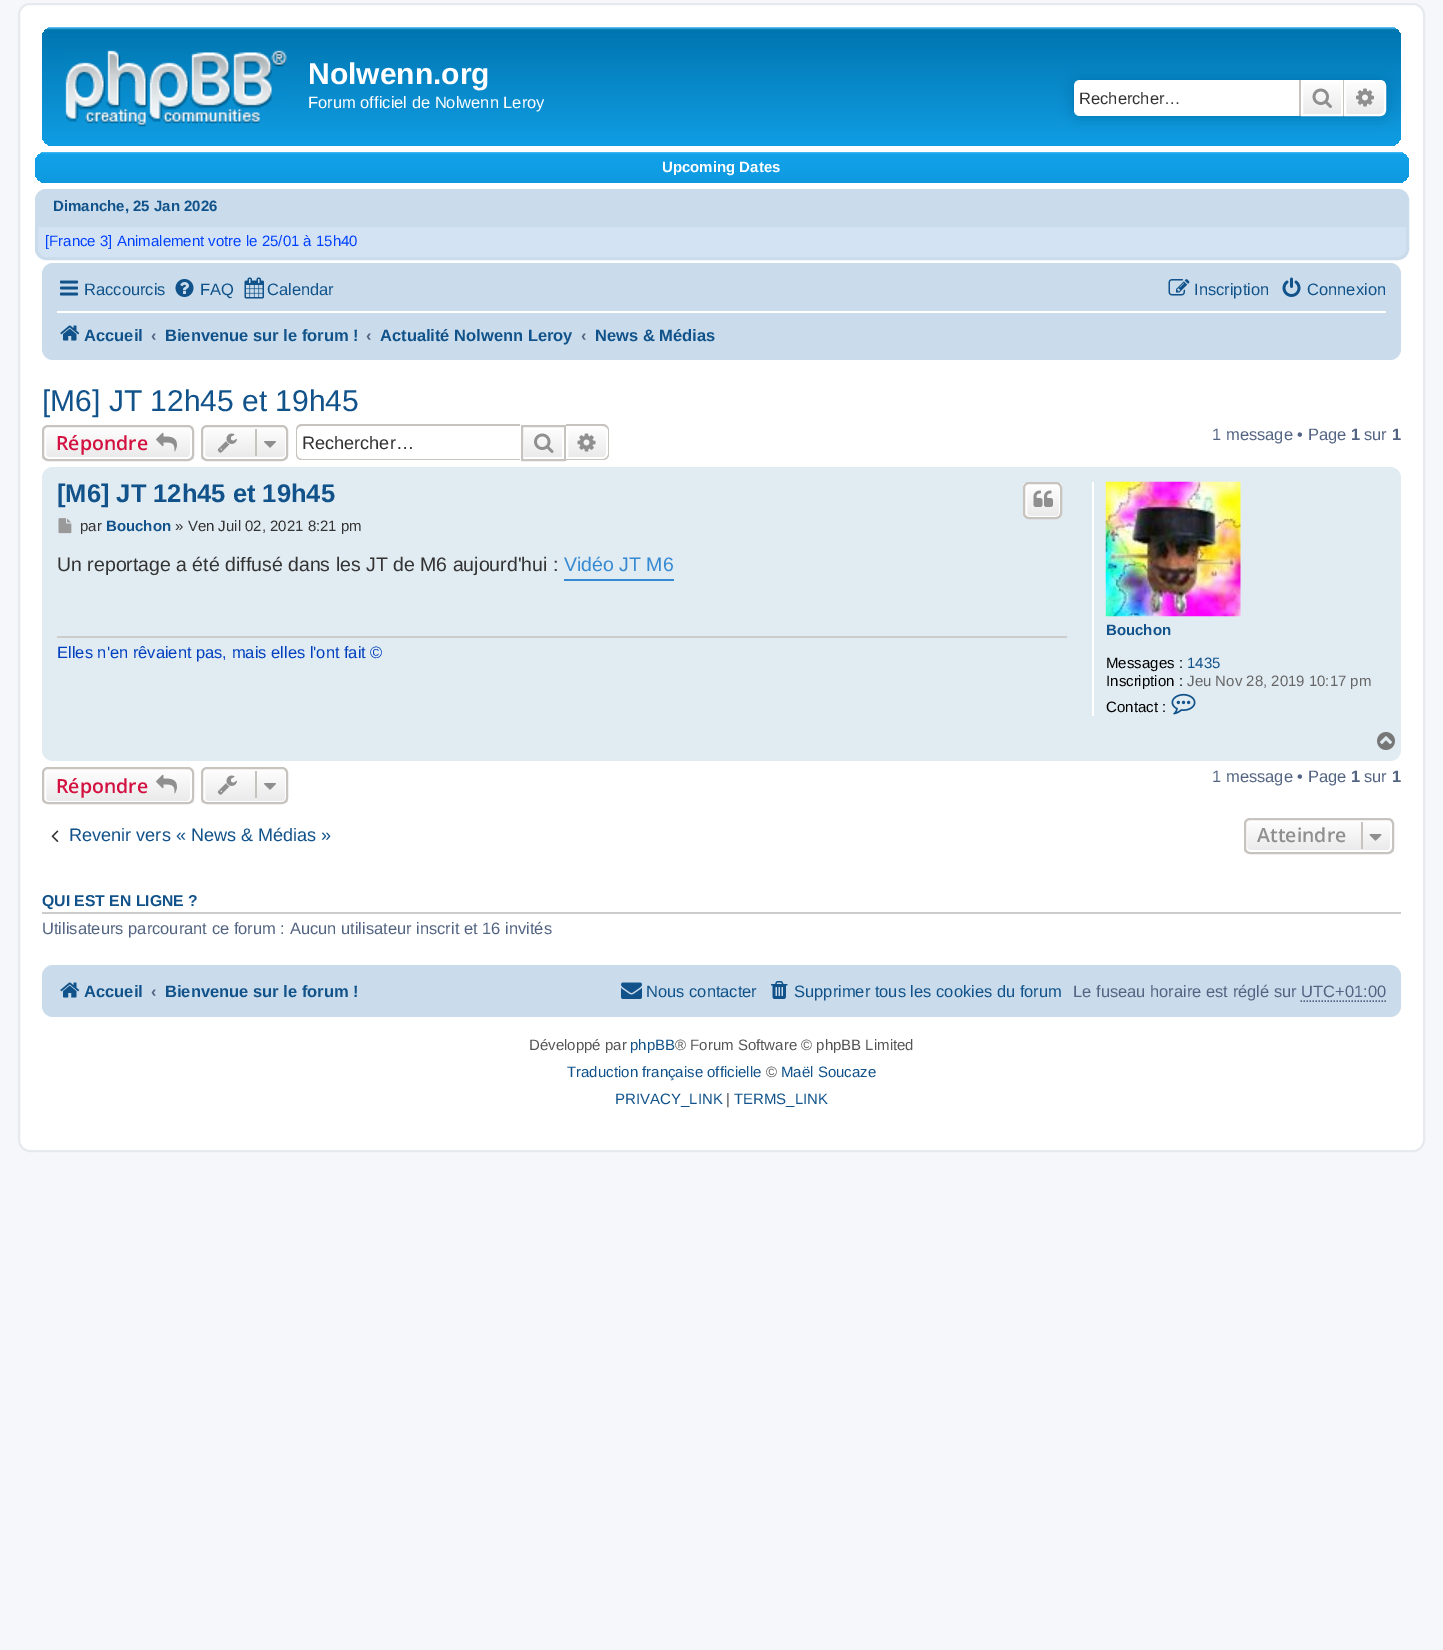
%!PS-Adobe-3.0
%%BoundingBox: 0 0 1443 1650
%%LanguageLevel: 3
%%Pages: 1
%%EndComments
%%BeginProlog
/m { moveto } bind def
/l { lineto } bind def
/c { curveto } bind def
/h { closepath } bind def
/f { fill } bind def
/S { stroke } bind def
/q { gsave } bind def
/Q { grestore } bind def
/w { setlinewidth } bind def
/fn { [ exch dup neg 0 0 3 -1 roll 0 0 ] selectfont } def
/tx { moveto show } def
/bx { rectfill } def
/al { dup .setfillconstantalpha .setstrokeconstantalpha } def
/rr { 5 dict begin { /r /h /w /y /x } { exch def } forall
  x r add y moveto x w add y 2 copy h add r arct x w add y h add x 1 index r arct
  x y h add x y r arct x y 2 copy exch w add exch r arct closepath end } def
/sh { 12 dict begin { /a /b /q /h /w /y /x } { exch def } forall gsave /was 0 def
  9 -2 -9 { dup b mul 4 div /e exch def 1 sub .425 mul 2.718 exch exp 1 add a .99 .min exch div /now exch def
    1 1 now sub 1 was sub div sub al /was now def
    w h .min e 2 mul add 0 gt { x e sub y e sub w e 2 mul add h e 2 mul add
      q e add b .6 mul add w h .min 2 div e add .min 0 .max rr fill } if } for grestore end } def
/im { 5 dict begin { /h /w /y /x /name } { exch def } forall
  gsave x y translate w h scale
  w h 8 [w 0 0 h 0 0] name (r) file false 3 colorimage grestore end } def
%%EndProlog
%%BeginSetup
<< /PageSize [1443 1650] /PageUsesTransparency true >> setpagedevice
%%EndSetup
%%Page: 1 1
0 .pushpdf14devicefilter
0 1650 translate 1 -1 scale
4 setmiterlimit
0.961 0.969 0.98 setrgbcolor
0 0 1443 1650 bx
1 setgray
19 4 1405 1147 11 rr q f Q
0.902 0.914 0.929 setrgbcolor
2 w
S
q 42 27 1359 119 11 rr clip newpath
<< /ShadingType 2 /ColorSpace /DeviceRGB /Coords [722 27 722 165] /Extend [true true] /Function << /FunctionType 3 /Domain [0 1] /Functions [<< /FunctionType 2 /Domain [0 1] /C0 [0.416 0.808 1] /C1 [0 0.463 0.694] /N 1 >> << /FunctionType 2 /Domain [0 1] /C0 [0 0.463 0.694] /C1 [0.071 0.639 0.922] /N 1 >>] /Bounds [0.02] /Encode [0 1 0 1] >> >> shfill Q
(image0.raw) 65 50 222 77 im
/LiberationSans-Bold 30 fn
1 setgray
(Nolwenn.org) 308 84 tx
/LiberationSans-Regular 16.5 fn
(Forum officiel de Nolwenn Leroy) 308 108 tx
0 0.459 0.69 setrgbcolor
1074 80 312 36 6 7.5 1 sh
1 setgray
1080 80 m 1299 80 l 1299 116 l 1080 116 l 1076.5 116 1074 113.5 1074 110 c 1074 86 l 1074 82.5 1076.5 80 1080 80 c h f
0.2 setgray
(Rechercher…) 1079 104 tx
q 1303 82 m 1341 82 l 1341 114 l 1303 114 l h clip newpath
<< /ShadingType 2 /ColorSpace /DeviceRGB /Coords [1322 80 1322 116] /Extend [true true] /Function << /FunctionType 2 /Domain [0 1] /C0 [1 1 1] /C1 [0.914 0.914 0.914] /N 1 >> >> shfill Q
1 setgray
1302 81 40 34 rectstroke
0.78 0.765 0.749 setrgbcolor
1343 80 1 36 bx
1299 80 2 36 bx
(image1.raw) 1312 88 20 20 im
q 1345 81 m 1380 81 l 1383 81 1385 83 1385 86 c 1385 110 l 1385 113 1383 115 1380 115 c 1345 115 l h clip newpath
<< /ShadingType 2 /ColorSpace /DeviceRGB /Coords [1365 80 1365 116] /Extend [true true] /Function << /FunctionType 2 /Domain [0 1] /C0 [1 1 1] /C1 [0.914 0.914 0.914] /N 1 >> >> shfill Q
1 setgray
1345 81 m 1380 81 l 1383 81 1385 83 1385 86 c 1385 110 l 1385 113 1383 115 1380 115 c 1345 115 l h S
(image2.raw) 1356 88 18 19 im
q 35 152 1374 31 11 rr clip newpath
<< /ShadingType 2 /ColorSpace /DeviceRGB /Coords [722 151 722 289] /Extend [true true] /Function << /FunctionType 3 /Domain [0 1] /Functions [<< /FunctionType 2 /Domain [0 1] /C0 [0.416 0.808 1] /C1 [0.071 0.639 0.922] /N 1 >> << /FunctionType 2 /Domain [0 1] /C0 [0.071 0.639 0.922] /C1 [0 0.463 0.694] /N 1 >>] /Bounds [0.02] /Encode [0 1 0 1] >> >> shfill Q
/LiberationSans-Bold 15 fn
(Upcoming Dates) 662 172 tx
0.827 0.89 0.953 setrgbcolor
36.5 190.5 1371 68 9.5 rr q f Q
0.792 0.863 0.922 setrgbcolor
3 w
S
46 192 m 1398 192 l 1402.5 192 1406 195.5 1406 200 c 1406 227 l 38 227 l 38 200 l 38 195.5 41.5 192 46 192 c h f
0.063 0.322 0.537 setrgbcolor
(Dimanche, 25 Jan 2026) 53 211 tx
/LiberationSans-Regular 15 fn
0 0.251 1 setrgbcolor
([France 3] Animalement votre le 25/01 à 15h40) 45 246 tx
0.792 0.863 0.922 setrgbcolor
42 263 1359 97 11 rr f
(image3.raw) 60 280 18 16 im
/LiberationSans-Regular 16.5 fn
0.063 0.322 0.537 setrgbcolor
(Raccourcis) 84 295 tx
(image4.raw) 175 279 19 18 im
(FAQ) 200 295 tx
(image5.raw) 244 277 20 22 im
(Calendar) 267 295 tx
(image6.raw) 1168 279 22 17 im
(Inscription) 1194 295 tx
(image7.raw) 1282 277 19 20 im
(Connexion) 1307 295 tx
1 setgray
57 311 1329 2 bx
(image8.raw) 60 325 20 16 im
/LiberationSans-Bold 16.5 fn
0.063 0.322 0.537 setrgbcolor
(Accueil) 84 341 tx
0.325 0.392 0.51 setrgbcolor
(‹) 151 341 tx
0.063 0.322 0.537 setrgbcolor
(Bienvenue sur le forum !) 165 341 tx
0.325 0.392 0.51 setrgbcolor
(‹) 366 341 tx
0.063 0.322 0.537 setrgbcolor
(Actualité Nolwenn Leroy) 380 341 tx
0.325 0.392 0.51 setrgbcolor
(‹) 581 341 tx
q
596 317 120 36 rectclip
0.063 0.322 0.537 setrgbcolor
(News & Médias) 595 341 tx
Q
/LiberationSans-Regular 30 fn
0.063 0.322 0.537 setrgbcolor
([M6] JT 12h45 et 19h45) 42 411 tx
q
42 425 152 36 6 rr clip newpath
q 42 426 m 194 426 l 194 459 l 42 459 l h clip newpath
<< /ShadingType 2 /ColorSpace /DeviceRGB /Coords [118 426 118 459] /Extend [true true] /Function << /FunctionType 2 /Domain [0 1] /C0 [1 1 1] /C1 [0.914 0.914 0.914] /N 1 >> >> shfill Q
Q
1 setgray
2 w
45 427 146 31 4 rr S
0.78 0.765 0.749 setrgbcolor
43 426 150 34 5 rr S
/OpenSans-SemiBold 19.5 fn
0.827 0.067 0.255 setrgbcolor
(Répondre) 56 450 tx
(image9.raw) 156 432 21 20 im
q
201 425 87 36 6 rr clip newpath
q 201 426 m 288 426 l 288 459 l 201 459 l h clip newpath
<< /ShadingType 2 /ColorSpace /DeviceRGB /Coords [245 426 245 459] /Extend [true true] /Function << /FunctionType 2 /Domain [0 1] /C0 [1 1 1] /C1 [0.914 0.914 0.914] /N 1 >> >> shfill Q
Q
1 setgray
204 427 82 31 4 rr S
0.78 0.765 0.749 setrgbcolor
202 426 85 34 5 rr S
(image10.raw) 217 433 20 20 im
255 429 2 27 bx
(image11.raw) 264 441 12 7 im
302 424 m 520 424 l 520 460 l 302 460 l 298 460 296 458 296 454 c 296 430 l 296 427 298 424 302 424 c h 302 426 m 520 426 l 520 459 l 302 459 l 299 459 297 457 297 454 c 297 430 l 297 428 299 426 302 426 c h eofill
/LiberationSans-Regular 18.1 fn
0.2 setgray
(Rechercher…) 302 449 tx
q 524 430 m 562 430 l 562 457 l 524 457 l h clip newpath
<< /ShadingType 2 /ColorSpace /DeviceRGB /Coords [543 426 543 459] /Extend [true true] /Function << /FunctionType 2 /Domain [0 1] /C0 [1 1 1] /C1 [0.914 0.914 0.914] /N 1 >> >> shfill Q
0.78 0.765 0.749 setrgbcolor
522 426 43 34 rectstroke
(image12.raw) 534 433 20 20 im
q 567 427 m 603 427 l 605 427 607 429 607 431 c 607 454 l 607 456 605 458 603 458 c 567 458 l h clip newpath
<< /ShadingType 2 /ColorSpace /DeviceRGB /Coords [587 426 587 459] /Extend [true true] /Function << /FunctionType 2 /Domain [0 1] /C0 [1 1 1] /C1 [0.914 0.914 0.914] /N 1 >> >> shfill Q
1 setgray
567 427 m 603 427 l 605 427 607 429 607 431 c 607 454 l 607 456 605 458 603 458 c 567 458 l h S
0.78 0.765 0.749 setrgbcolor
566 424 m 603 424 l 606 424 609 427 609 430 c 609 454 l 609 458 606 460 603 460 c 566 460 l h 566 426 m 603 426 l 605 426 608 428 608 430 c 608 454 l 608 457 605 459 603 459 c 566 459 l h eofill
(image13.raw) 577 433 19 19 im
/LiberationSans-Regular 16.5 fn
0.325 0.392 0.51 setrgbcolor
(1 message • Page) 1212 440 tx
/LiberationSans-Bold 16.5 fn
(1) 1351 440 tx
/LiberationSans-Regular 16.5 fn
(sur) 1364 440 tx
/LiberationSans-Bold 16.5 fn
(1) 1392 440 tx
0.882 0.922 0.949 setrgbcolor
42 467 1359 294 11 rr f
/LiberationSans-Bold 25.5 fn
0.063 0.322 0.537 setrgbcolor
([M6] JT 12h45 et 19h45) 57 502 tx
q
1023 482 39 37 6 rr clip newpath
q 1023 483 m 1062 483 l 1062 518 l 1023 518 l h clip newpath
<< /ShadingType 2 /ColorSpace /DeviceRGB /Coords [1043 483 1043 518] /Extend [true true] /Function << /FunctionType 2 /Domain [0 1] /C0 [1 1 1] /C1 [0.914 0.914 0.914] /N 1 >> >> shfill Q
Q
1 setgray
1026 484 34 33 4 rr S
0.78 0.765 0.749 setrgbcolor
1024 483 37 35 5 rr S
(image14.raw) 1033 490 20 17 im
(image15.raw) 58 518 14 16 im
/LiberationSans-Regular 15 fn
0.2 setgray
(par) 80 531 tx
/LiberationSans-Bold 15 fn
0.063 0.322 0.537 setrgbcolor
(Bouchon) 106 531 tx
/LiberationSans-Regular 15 fn
0.2 setgray
(» Ven Juil 02, 2021 8:21 pm) 175 531 tx
/LiberationSans-Regular 19.5 fn
(Un reportage a été diffusé dans les JT de M6 aujourd'hui :) 57 571 tx
0.212 0.541 0.824 setrgbcolor
564 579 110 2 bx
(Vidéo JT M6) 564 571 tx
0.8 setgray
57 636 1010 2 bx
/LiberationSans-Regular 16.5 fn
0 0.251 0.749 setrgbcolor
(Elles n'en rêvaient pas, mais elles l'ont fait ©) 57 658 tx
1 setgray
1092 482 2 234 bx
(image16.raw) 1105 481 136 136 im
/LiberationSans-Bold 15 fn
0.063 0.322 0.537 setrgbcolor
(Bouchon) 1106 635 tx
/LiberationSans-Regular 15 fn
0 setgray
(Messages :) 1106 668 tx
0.063 0.322 0.537 setrgbcolor
(1435) 1187 668 tx
0 setgray
(Inscription :) 1106 686 tx
0.4 setgray
(Jeu Nov 28, 2019 10:17 pm) 1187 686 tx
0 setgray
(Contact :) 1106 712 tx
(image17.raw) 1171 693 25 22 im
(image18.raw) 1377 732 18 18 im
q
42 767 152 37 6 rr clip newpath
q 42 768 m 194 768 l 194 803 l 42 803 l h clip newpath
<< /ShadingType 2 /ColorSpace /DeviceRGB /Coords [118 768 118 803] /Extend [true true] /Function << /FunctionType 2 /Domain [0 1] /C0 [1 1 1] /C1 [0.914 0.914 0.914] /N 1 >> >> shfill Q
Q
1 setgray
45 769 146 33 4 rr S
0.78 0.765 0.749 setrgbcolor
43 768 150 35 5 rr S
/OpenSans-SemiBold 19.5 fn
0.827 0.067 0.255 setrgbcolor
(Répondre) 56 793 tx
(image19.raw) 156 774 21 20 im
q
201 767 87 37 6 rr clip newpath
q 201 768 m 288 768 l 288 803 l 201 803 l h clip newpath
<< /ShadingType 2 /ColorSpace /DeviceRGB /Coords [245 768 245 803] /Extend [true true] /Function << /FunctionType 2 /Domain [0 1] /C0 [1 1 1] /C1 [0.914 0.914 0.914] /N 1 >> >> shfill Q
Q
1 setgray
204 769 82 33 4 rr S
0.78 0.765 0.749 setrgbcolor
202 768 85 35 5 rr S
(image20.raw) 217 775 20 20 im
255 771 2 27 bx
(image21.raw) 264 783 12 7 im
/LiberationSans-Regular 16.5 fn
0.325 0.392 0.51 setrgbcolor
(1 message • Page) 1212 782 tx
/LiberationSans-Bold 16.5 fn
(1) 1351 782 tx
/LiberationSans-Regular 16.5 fn
(sur) 1364 782 tx
/LiberationSans-Bold 16.5 fn
(1) 1392 782 tx
(image22.raw) 51 830 8 12 im
/LiberationSans-Regular 18.1 fn
0.063 0.322 0.537 setrgbcolor
(Revenir vers « News & Médias ») 69 841 tx
q
1244 818 150 36 6 rr clip newpath
q 1244 819 m 1394 819 l 1394 852 l 1244 852 l h clip newpath
<< /ShadingType 2 /ColorSpace /DeviceRGB /Coords [1319 819 1319 852] /Extend [true true] /Function << /FunctionType 2 /Domain [0 1] /C0 [1 1 1] /C1 [0.914 0.914 0.914] /N 1 >> >> shfill Q
Q
1 setgray
1246 820 145 31 4 rr S
0.78 0.765 0.749 setrgbcolor
1245 819 148 34 5 rr S
/OpenSans-SemiBold 19.5 fn
0.561 setgray
(Atteindre) 1257 842 tx
0.78 0.765 0.749 setrgbcolor
1361 822 2 27 bx
(image23.raw) 1369 834 13 7 im
0.8 setgray
42 912 1359 2 bx
/LiberationSans-Bold 15.75 fn
0.063 0.322 0.537 setrgbcolor
(QUI EST EN LIGNE ?) 42 906 tx
/LiberationSans-Regular 16.5 fn
0.325 0.392 0.51 setrgbcolor
(Utilisateurs parcourant ce forum : Aucun utilisateur inscrit et 16 invités) 42 934 tx
0.792 0.863 0.922 setrgbcolor
42 965 1359 52 11 rr f
(image8.raw) 60 982 20 16 im
/LiberationSans-Bold 16.5 fn
0.063 0.322 0.537 setrgbcolor
(Accueil) 84 997 tx
0.325 0.392 0.51 setrgbcolor
(‹) 151 997 tx
0.063 0.322 0.537 setrgbcolor
(Bienvenue sur le forum !) 165 997 tx
(image24.raw) 621 982 21 17 im
/LiberationSans-Regular 16.5 fn
(Nous contacter) 646 997 tx
(image25.raw) 771 981 17 18 im
(Supprimer tous les cookies du forum) 794 997 tx
0.325 0.392 0.51 setrgbcolor
(Le fuseau horaire est réglé sur UTC+01:00) 1073 997 tx
1.5 w
[1.5 1.5] 0 setdash
1300.5 1001 m 1386 1001 l S
/LiberationSans-Regular 15 fn
0.333 setgray
(Développé par) 529 1050 tx
0.063 0.322 0.537 setrgbcolor
(phpBB) 630 1050 tx
0.333 setgray
(® Forum Software © phpBB Limited) 675 1050 tx
0.063 0.322 0.537 setrgbcolor
(Traduction française officielle) 567 1077 tx
0.333 setgray
(©) 766 1077 tx
0.063 0.322 0.537 setrgbcolor
(Maël Soucaze) 781 1077 tx
(PRIVACY_LINK) 615 1104 tx
0.333 setgray
(|) 726 1104 tx
0.063 0.322 0.537 setrgbcolor
(TERMS_LINK) 734 1104 tx
.poppdf14devicefilter showpage
%%EOF
